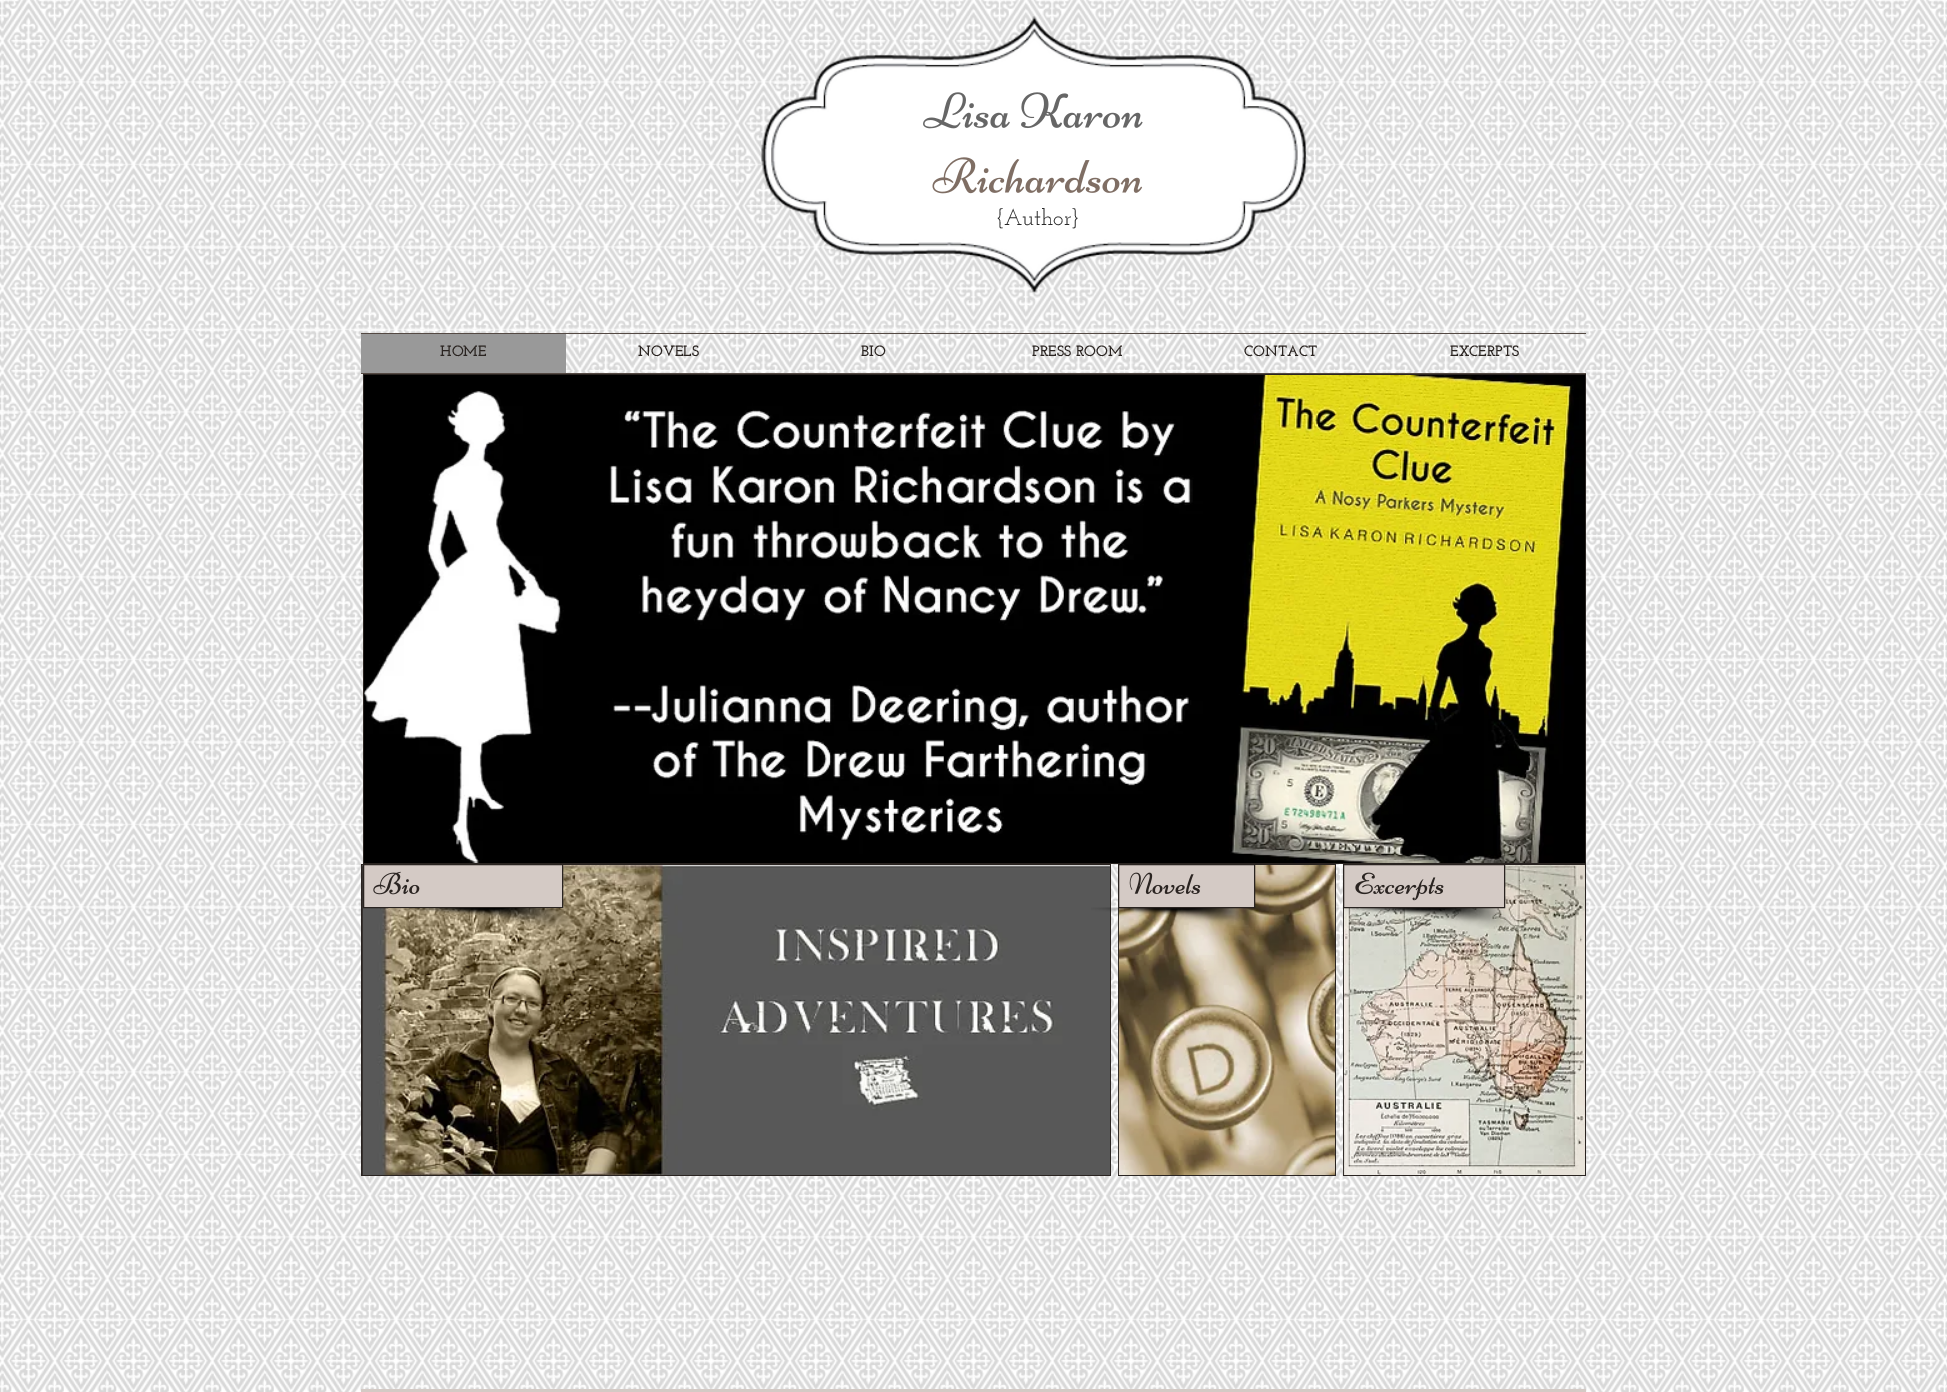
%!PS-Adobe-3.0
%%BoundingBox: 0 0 1947 1392
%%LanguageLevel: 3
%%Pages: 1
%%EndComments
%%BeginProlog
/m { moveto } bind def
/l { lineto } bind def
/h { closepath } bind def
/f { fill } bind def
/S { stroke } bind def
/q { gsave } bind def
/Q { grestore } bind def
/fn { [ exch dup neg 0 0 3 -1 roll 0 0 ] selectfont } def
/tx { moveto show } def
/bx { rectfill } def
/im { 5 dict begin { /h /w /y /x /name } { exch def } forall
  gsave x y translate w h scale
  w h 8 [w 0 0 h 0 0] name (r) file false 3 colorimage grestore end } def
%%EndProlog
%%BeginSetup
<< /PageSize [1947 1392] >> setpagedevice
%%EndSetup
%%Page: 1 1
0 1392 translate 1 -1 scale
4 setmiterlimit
1 setgray
0 0 1947 1392 bx
(image0.raw) 0 0 1947 1392 im
(image1.raw) 761 16 546 277 im
(image2.raw) 923 92 220 37 im
(image3.raw) 932 157 211 37 im
/JosefinSlab-Regular 22.5 fn
0.165 setgray
({Author}) 997 225 tx
0.329 0.286 0.263 setrgbcolor
361 333 1225 1 bx
361 373 1225 1 bx
0.6 setgray
361 334 205 39 bx
/JosefinSlab-Bold 15 fn
0.165 0.141 0.129 setrgbcolor
(HOME) 440 356 tx
(NOVELS) 638 356 tx
(BIO) 861 356 tx
(PRESS ROOM) 1032 356 tx
(CONTACT) 1244 356 tx
(EXCERPTS) 1450 356 tx
363 374 1223 490 bx
(image4.raw) 364 375 1221 488 im
361 864 750 312 bx
(image5.raw) 362 865 748 310 im
0.831 0.792 0.773 setrgbcolor
363.5 864.5 m 562.5 864.5 l 562.5 907.5 l 363.5 907.5 l h q f Q
0.165 0.141 0.129 setrgbcolor
S
(image6.raw) 373 871 47 24 im
(image7.raw) 388 908 185 21 im
1118 864 218 312 bx
(image10.raw) 1118 865 217 310 im
(image9.raw) 1091 907 175 21 im
0.831 0.792 0.773 setrgbcolor
1118.5 864.5 m 1254.5 864.5 l 1254.5 907.5 l 1118.5 907.5 l h q f Q
0.165 0.141 0.129 setrgbcolor
S
(image8.raw) 1129 872 72 23 im
1343 864 243 312 bx
(image13.raw) 1343 865 242 310 im
(image12.raw) 1332 907 184 22 im
0.831 0.792 0.773 setrgbcolor
1343.5 864.5 m 1504.5 864.5 l 1504.5 907.5 l 1343.5 907.5 l h q f Q
0.165 0.141 0.129 setrgbcolor
S
(image11.raw) 1355 872 89 29 im
0.831 0.792 0.773 setrgbcolor
361 1389 1225 3 bx
showpage
%%EOF
